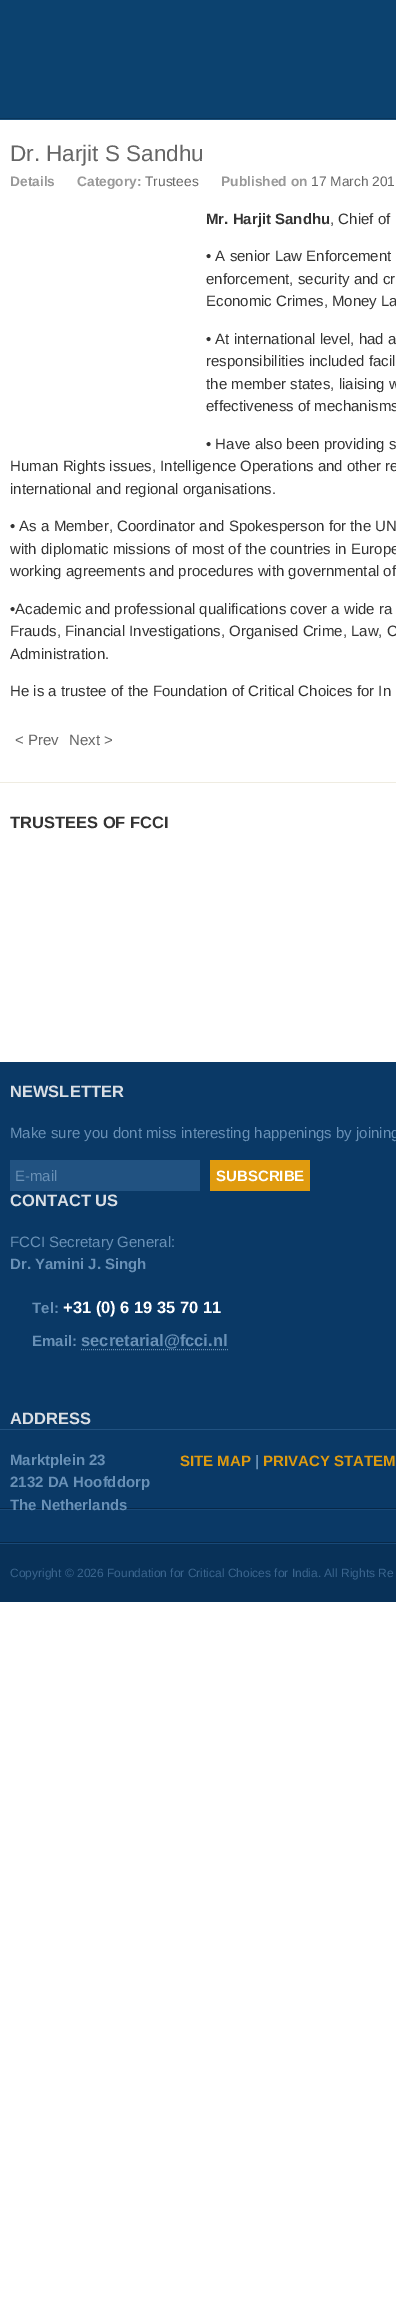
%!PS-Adobe-3.0
%%BoundingBox: 0 0 396 2306
%%LanguageLevel: 3
%%Pages: 1
%%EndComments
%%BeginProlog
/m { moveto } bind def
/l { lineto } bind def
/S { stroke } bind def
/fn { [ exch dup neg 0 0 3 -1 roll 0 0 ] selectfont } def
/tx { moveto show } def
/bx { rectfill } def
%%EndProlog
%%BeginSetup
<< /PageSize [396 2306] >> setpagedevice
%%EndSetup
%%Page: 1 1
0 2306 translate 1 -1 scale
4 setmiterlimit
1 setgray
0 0 396 2306 bx
0.047 0.259 0.435 setrgbcolor
0 0 396 118 bx
0.035 0.208 0.353 setrgbcolor
0 118 396 1 bx
0.122 0.325 0.494 setrgbcolor
0 119 396 1 bx
/LiberationSans-Regular 22.5 fn
0.4 setgray
(Dr. Harjit S Sandhu) 10 161 tx
/LiberationSans-Bold 13.75 fn
0.6 setgray
(Details) 10 186 tx
(Category:) 77 186 tx
/LiberationSans-Regular 13.75 fn
0.4 setgray
(Trustees) 145 186 tx
/LiberationSans-Bold 13.75 fn
0.6 setgray
(Published on) 221 186 tx
/LiberationSans-Regular 13.75 fn
0.4 setgray
(17 March 201) 311 186 tx
/LiberationSans-Bold 15 fn
0.2 setgray
(Mr. Harjit Sandhu) 206 224 tx
/LiberationSans-Regular 15 fn
(, Chief of) 330 224 tx
(• A senior Law Enforcement) 206 261 tx
(enforcement, security and cr) 206 284 tx
(Economic Crimes, Money La) 206 306 tx
(• At international level, had a) 206 344 tx
(responsibilities included facil) 206 366 tx
(the member states, liaising w) 206 389 tx
(effectiveness of mechanisms) 206 411 tx
(• Have also been providing s) 206 449 tx
(Human Rights issues, Intelligence Operations and other re) 10 471 tx
(international and regional organisations.) 10 494 tx
(• As a Member, Coordinator and Spokesperson for the UN) 10 531 tx
(with diplomatic missions of most of the countries in Europe) 10 554 tx
(working agreements and procedures with governmental of) 10 576 tx
(•Academic and professional qualifications cover a wide ra) 10 614 tx
(Frauds, Financial Investigations, Organised Crime, Law, C) 10 636 tx
(Administration.) 10 659 tx
(He is a trustee of the Foundation of Critical Choices for In) 10 696 tx
0.4 setgray
(< Prev) 15 745 tx
(Next >) 69 745 tx
0.937 0.925 0.882 setrgbcolor
0 782 396 1 bx
/LiberationSans-Bold 16.5 fn
0.2 setgray
(TRUSTEES OF FCCI) 10 828 tx
0.039 0.224 0.4 setrgbcolor
0 1062 396 367 bx
0.129 0.322 0.506 setrgbcolor
0 1429 396 1 bx
0.851 0.871 0.894 setrgbcolor
(NEWSLETTER) 10 1097 tx
/LiberationSans-Regular 15 fn
0.412 0.569 0.718 setrgbcolor
(Make sure you dont miss interesting happenings by joining) 10 1138 tx
0.129 0.322 0.506 setrgbcolor
10 1160 190 31 bx
0.412 0.569 0.718 setrgbcolor
(E-mail) 15 1181 tx
0.878 0.608 0.059 setrgbcolor
210 1160 100 31 bx
/LiberationSans-Bold 15 fn
1 setgray
(SUBSCRIBE) 216 1181 tx
/LiberationSans-Bold 16.5 fn
0.851 0.871 0.894 setrgbcolor
(CONTACT US) 10 1206 tx
/LiberationSans-Regular 15 fn
0.412 0.569 0.718 setrgbcolor
(FCCI Secretary General:) 10 1247 tx
/LiberationSans-Bold 15 fn
(Dr. Yamini J. Singh) 10 1269 tx
(Tel:) 32 1313 tx
/LiberationSans-Bold 16.5 fn
1 setgray
(+31 \(0\) 6 19 35 70 11) 63 1313 tx
/LiberationSans-Bold 15 fn
0.412 0.569 0.718 setrgbcolor
(Email:) 32 1346 tx
/LiberationSans-Bold 16.5 fn
(secretarial@fcci.nl) 81 1346 tx
[1 1] 0 setdash
81 1349.5 m 228 1349.5 l S
0.851 0.871 0.894 setrgbcolor
(ADDRESS) 10 1424 tx
0.039 0.224 0.4 setrgbcolor
0 1430 396 78 bx
/LiberationSans-Bold 15 fn
0.412 0.569 0.718 setrgbcolor
(Marktplein 23) 10 1465 tx
(2132 DA Hoofddorp) 10 1487 tx
0.027 0.157 0.282 setrgbcolor
0 1508 396 1 bx
0.039 0.224 0.4 setrgbcolor
0 1510 396 32 bx
0.094 0.286 0.471 setrgbcolor
0 1509 396 1 bx
0.412 0.569 0.718 setrgbcolor
(The Netherlands) 10 1510 tx
0.878 0.608 0.059 setrgbcolor
(SITE MAP) 180 1466 tx
0.412 0.569 0.718 setrgbcolor
(|) 255 1466 tx
0.878 0.608 0.059 setrgbcolor
(PRIVACY STATEM) 263 1466 tx
0.027 0.157 0.282 setrgbcolor
0 1542 396 1 bx
0.031 0.192 0.345 setrgbcolor
0 1544 396 58 bx
0.094 0.286 0.471 setrgbcolor
0 1543 396 1 bx
/LiberationSans-Regular 12 fn
0.227 0.396 0.557 setrgbcolor
(Copyright © 2026 Foundation for Critical Choices for India. All Rights Re) 10 1577 tx
showpage
%%EOF
